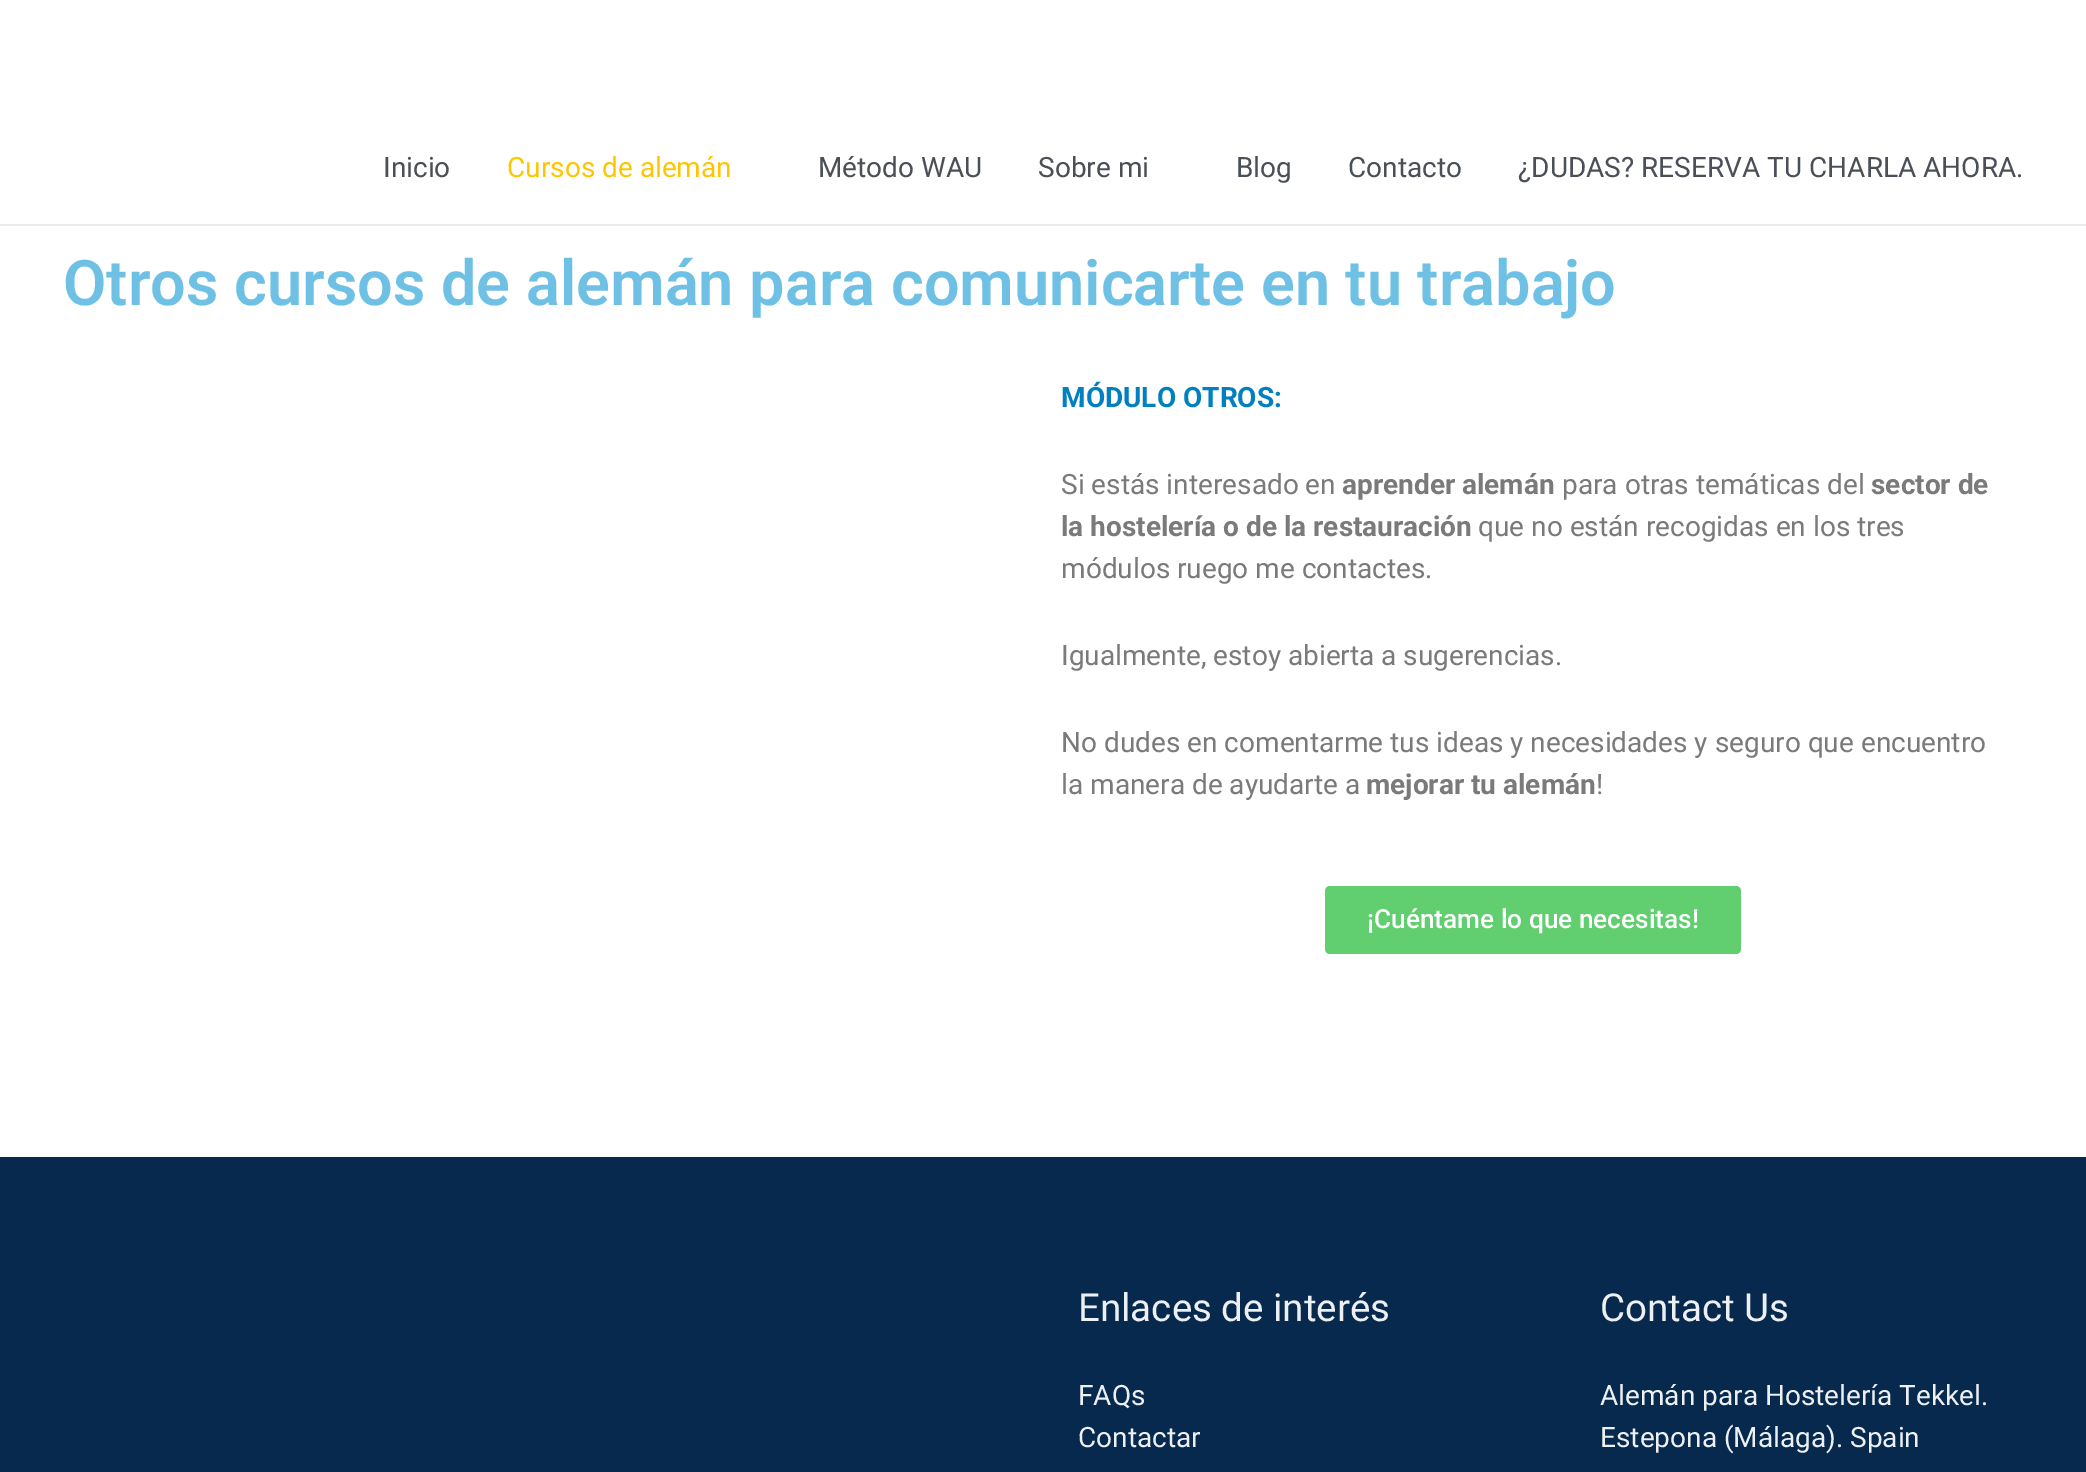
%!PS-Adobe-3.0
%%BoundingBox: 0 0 2086 1472
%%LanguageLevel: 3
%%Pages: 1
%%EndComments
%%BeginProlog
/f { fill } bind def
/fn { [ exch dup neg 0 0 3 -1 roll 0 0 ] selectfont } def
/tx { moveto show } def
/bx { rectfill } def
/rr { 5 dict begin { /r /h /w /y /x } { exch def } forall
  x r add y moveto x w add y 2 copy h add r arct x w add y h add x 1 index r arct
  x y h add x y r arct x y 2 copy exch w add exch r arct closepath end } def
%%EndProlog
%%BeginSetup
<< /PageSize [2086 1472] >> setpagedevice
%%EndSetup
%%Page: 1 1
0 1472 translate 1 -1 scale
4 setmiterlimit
1 setgray
0 0 2086 1472 bx
0.918 setgray
0 224 2086 2 bx
/Roboto-Regular 28 fn
0.294 0.31 0.345 setrgbcolor
(Inicio) 383 177 tx
1 0.776 0 setrgbcolor
(Cursos de alemán) 507 177 tx
0.294 0.31 0.345 setrgbcolor
(Método WAU) 818 177 tx
(Sobre mi) 1038 177 tx
(Blog) 1236 177 tx
(Contacto) 1348 177 tx
(¿DUDAS? RESERVA TU CHARLA AHORA.) 1518 177 tx
/Roboto-SemiBold 63 fn
0.431 0.757 0.894 setrgbcolor
(Otros cursos de alemán para comunicarte en tu trabajo) 63 305 tx
/Roboto-Bold 28 fn
0 0.498 0.757 setrgbcolor
(MÓDULO OTROS:) 1061 407 tx
/Roboto-Regular 28 fn
0.478 setgray
(Si estás interesado en) 1061 494 tx
/Roboto-Bold 28 fn
(aprender alemán) 1342 494 tx
/Roboto-Regular 28 fn
(para otras temáticas del) 1562 494 tx
/Roboto-Bold 28 fn
(sector de) 1871 494 tx
(la hostelería o de la restauración) 1061 536 tx
/Roboto-Regular 28 fn
(que no están recogidas en los tres) 1478 536 tx
(módulos ruego me contactes.) 1061 578 tx
(Igualmente, estoy abierta a sugerencias.) 1061 665 tx
(No dudes en comentarme tus ideas y necesidades y seguro que encuentro) 1061 752 tx
(la manera de ayudarte a) 1061 794 tx
/Roboto-Bold 28 fn
(mejorar tu alemán) 1366 794 tx
/Roboto-Regular 28 fn
(!) 1596 794 tx
0.38 0.808 0.439 setrgbcolor
1325 886 416 68 5 rr f
/Roboto-Medium 26.25 fn
1 setgray
(¡Cuéntame lo que necesitas!) 1367 928 tx
0.027 0.161 0.302 setrgbcolor
0 1157 2086 315 bx
/Roboto-Regular 38.5 fn
0.929 0.941 0.949 setrgbcolor
(Enlaces de interés) 1078 1321 tx
/Roboto-Regular 28 fn
(FAQs) 1078 1405 tx
(Contactar) 1078 1447 tx
/Roboto-Regular 38.5 fn
(Contact Us) 1600 1321 tx
/Roboto-Regular 28 fn
(Alemán para Hostelería Tekkel.) 1600 1405 tx
(Estepona \(Málaga\). Spain) 1600 1447 tx
showpage
%%EOF
